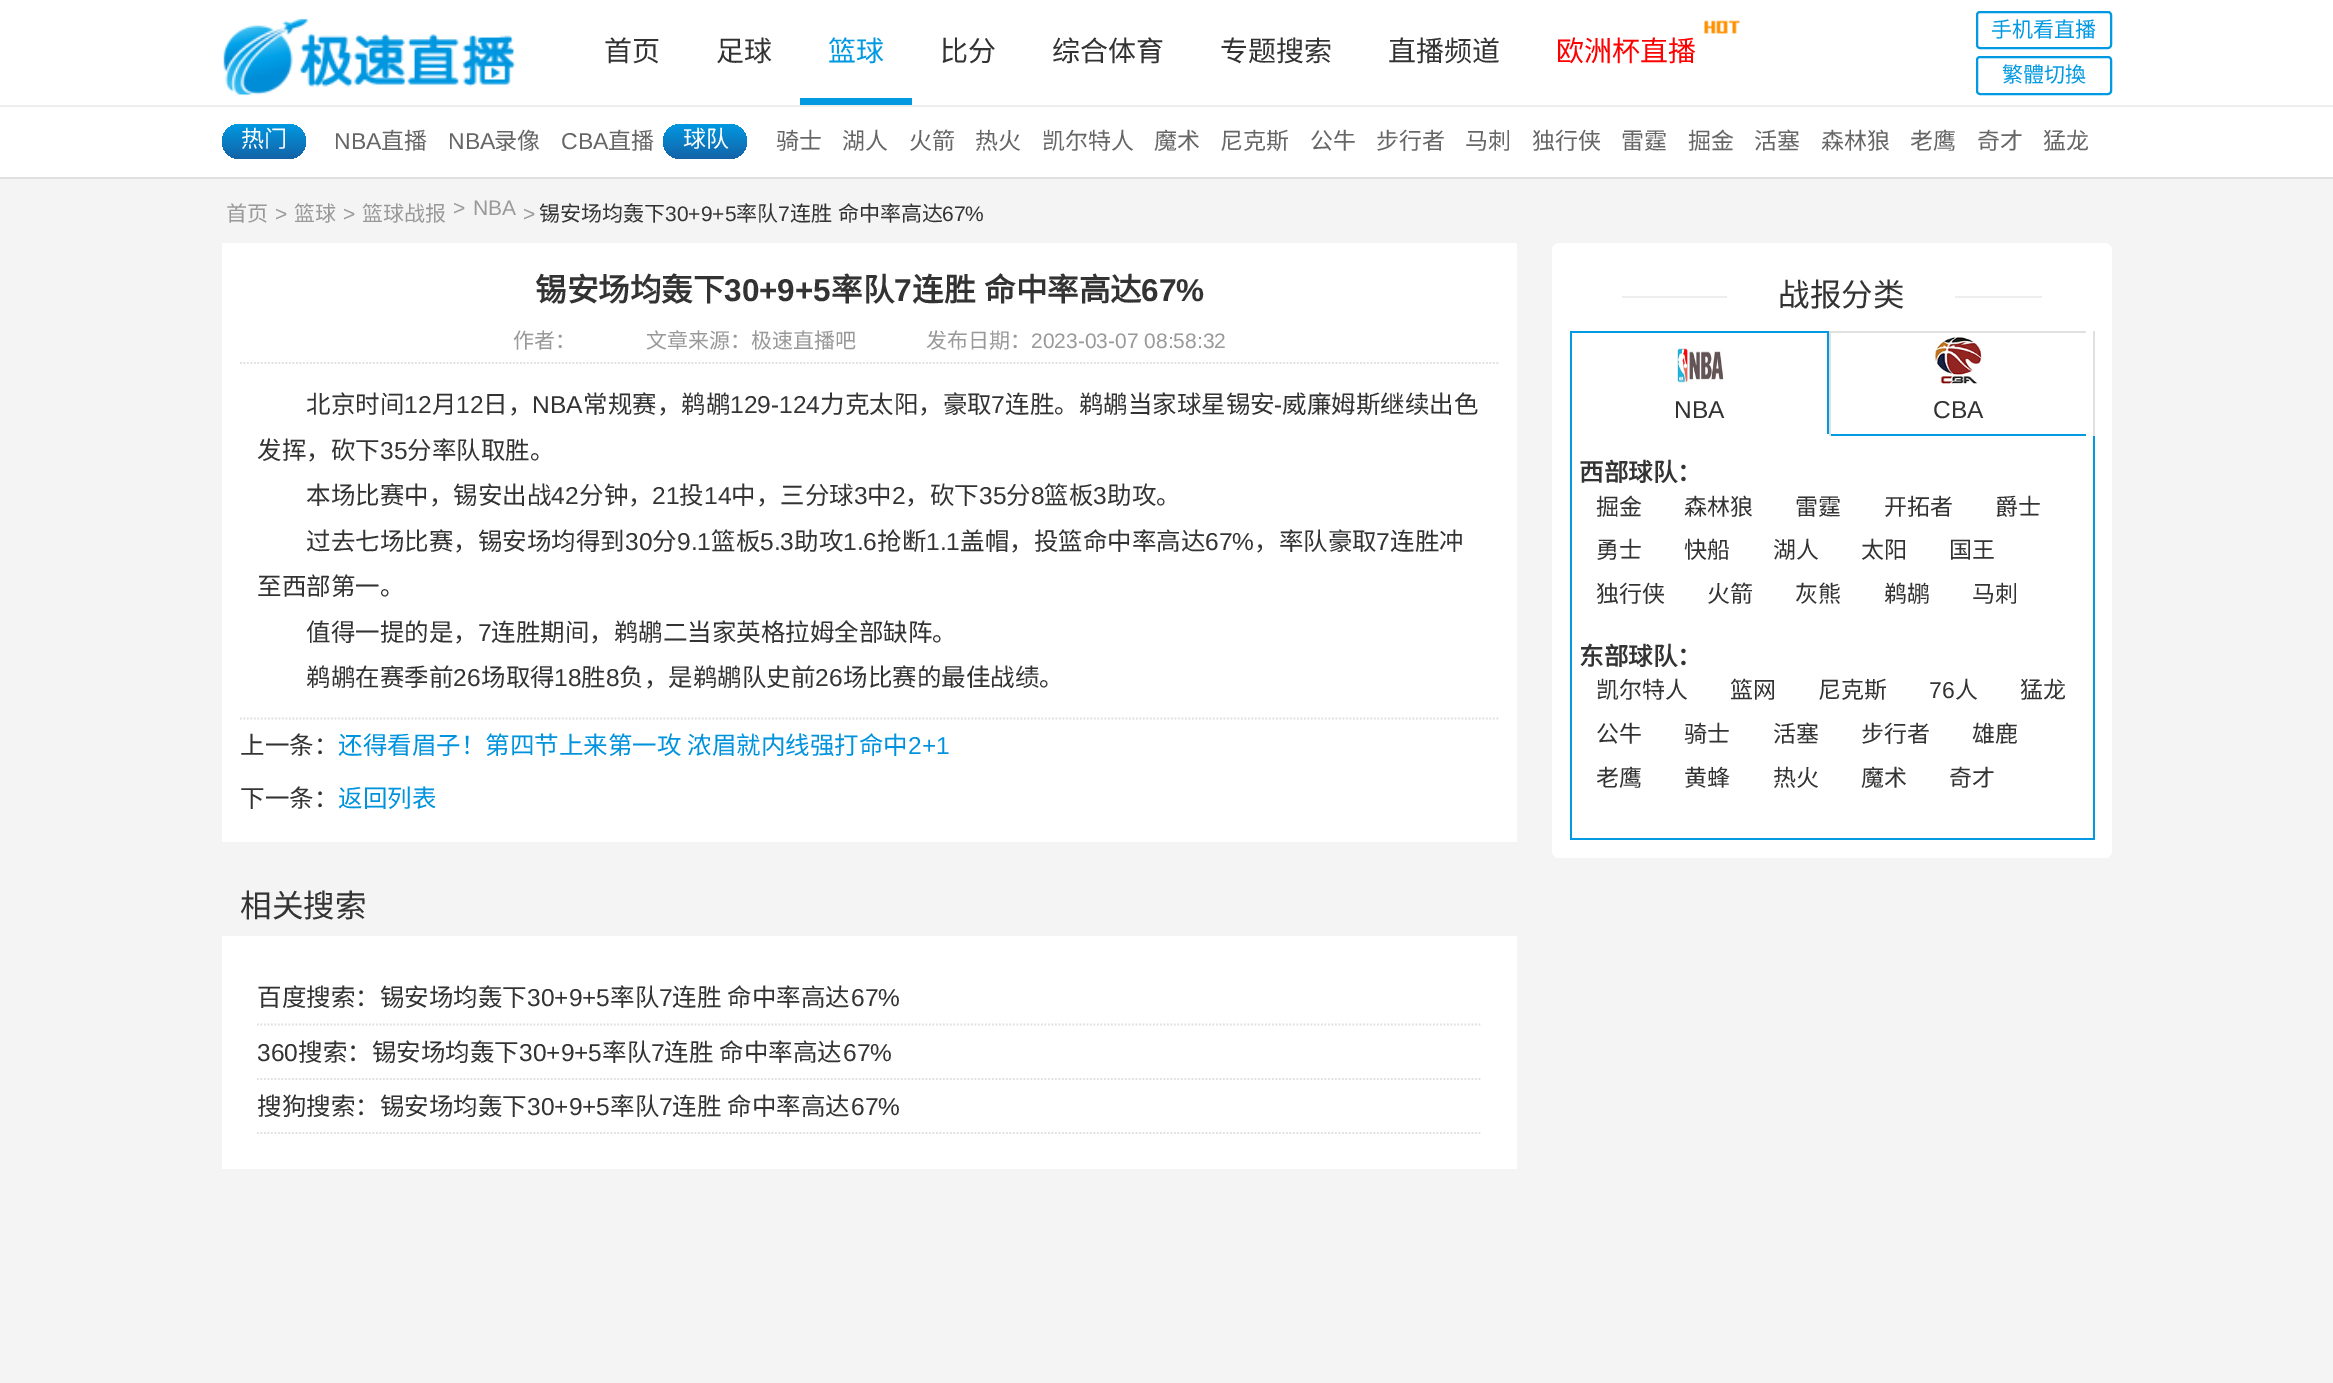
%!PS-Adobe-3.0
%%BoundingBox: 0 0 2333 1383
%%LanguageLevel: 3
%%Pages: 1
%%EndComments
%%BeginProlog
/m { moveto } bind def
/l { lineto } bind def
/f { fill } bind def
/S { stroke } bind def
/q { gsave } bind def
/Q { grestore } bind def
/w { setlinewidth } bind def
/fn { [ exch dup neg 0 0 3 -1 roll 0 0 ] selectfont } def
/tx { moveto show } def
/bx { rectfill } def
/rr { 5 dict begin { /r /h /w /y /x } { exch def } forall
  x r add y moveto x w add y 2 copy h add r arct x w add y h add x 1 index r arct
  x y h add x y r arct x y 2 copy exch w add exch r arct closepath end } def
/im { 5 dict begin { /h /w /y /x /name } { exch def } forall
  gsave x y translate w h scale
  w h 8 [w 0 0 h 0 0] name (r) file false 3 colorimage grestore end } def
%%EndProlog
%%BeginSetup
<< /PageSize [2333 1383] >> setpagedevice
%%EndSetup
%%Page: 1 1
0 1383 translate 1 -1 scale
4 setmiterlimit
0.957 setgray
0 0 2333 1383 bx
1 setgray
0 0 2333 177 bx
0.878 setgray
0 177 2333 2 bx
0.933 setgray
0 105 2333 2 bx
(image0.raw) 223 18 293 77 im
/NotoSansCJKSC-Regular 28 fn
0.2 setgray
(首页) 604 61 tx
(足球) 716 61 tx
0 0.6 0.886 setrgbcolor
800 98 112 7 bx
(篮球) 828 61 tx
0.2 setgray
(比分) 940 61 tx
(综合体育) 1052 61 tx
(专题搜索) 1220 61 tx
(直播频道) 1388 61 tx
(image1.raw) 1704 20 36 14 im
1 0 0 setrgbcolor
(欧洲杯直播) 1556 61 tx
0 0.6 0.886 setrgbcolor
2 w
1977 12 134 36 3 rr S
/NotoSansCJKSC-Regular 21 fn
(手机看直播) 1991 37 tx
1977 57 134 37 3 rr S
(繁體切換) 2002 82 tx
q 222 124 84 35 17.5 rr clip newpath
<< /ShadingType 2 /ColorSpace /DeviceRGB /Coords [264 124 264 159] /Extend [true true] /Function << /FunctionType 2 /Domain [0 1] /C0 [0 0.6 0.886] /C1 [0.078 0.384 0.655] /N 1 >> >> shfill Q
/NotoSansCJKSC-Regular 23 fn
1 setgray
(热门) 241 147 tx
/LiberationSans-Regular 23 fn
0.4 setgray
(NBA) 334 149 tx
/NotoSansCJKSC-Regular 23 fn
(直播) 381 149 tx
/LiberationSans-Regular 23 fn
(NBA) 448 149 tx
/NotoSansCJKSC-Regular 23 fn
(录像) 494 149 tx
/LiberationSans-Regular 23 fn
(CBA) 561 149 tx
/NotoSansCJKSC-Regular 23 fn
(直播) 608 149 tx
q 663 124 84 35 17.5 rr clip newpath
<< /ShadingType 2 /ColorSpace /DeviceRGB /Coords [705 124 705 159] /Extend [true true] /Function << /FunctionType 2 /Domain [0 1] /C0 [0 0.6 0.886] /C1 [0.078 0.384 0.655] /N 1 >> >> shfill Q
1 setgray
(球队) 683 147 tx
0.4 setgray
(骑士) 776 149 tx
(湖人) 842 149 tx
(火箭) 909 149 tx
(热火) 975 149 tx
(凯尔特人) 1042 149 tx
(魔术) 1154 149 tx
(尼克斯) 1220 149 tx
(公牛) 1310 149 tx
(步行者) 1376 149 tx
(马刺) 1465 149 tx
(独行侠) 1532 149 tx
(雷霆) 1621 149 tx
(掘金) 1688 149 tx
(活塞) 1754 149 tx
(森林狼) 1821 149 tx
(老鹰) 1910 149 tx
(奇才) 1977 149 tx
(猛龙) 2043 149 tx
/NotoSansCJKSC-Regular 21 fn
0.6 setgray
(首页) 226 221 tx
/LiberationSans-Regular 21 fn
(>) 275 221 tx
/NotoSansCJKSC-Regular 21 fn
(篮球) 294 221 tx
/LiberationSans-Regular 21 fn
(>) 343 221 tx
/NotoSansCJKSC-Regular 21 fn
(篮球战报) 362 221 tx
/LiberationSans-Regular 21 fn
(>) 453 215 tx
(NBA) 473 215 tx
(>) 523 221 tx
/NotoSansCJKSC-Regular 21 fn
0.2 setgray
(锡安场均轰下) 539 221 tx
/LiberationSans-Regular 21 fn
(30+9+5) 665 221 tx
/NotoSansCJKSC-Regular 21 fn
(率队) 736 221 tx
/LiberationSans-Regular 21 fn
(7) 778 221 tx
/NotoSansCJKSC-Regular 21 fn
790 221 m 1 0 32 (连胜 命中率高达) widthshow
/LiberationSans-Regular 21 fn
(67%) 942 221 tx
1 setgray
222 243 1295 599 bx
/NotoSansCJKSC-Bold 31.5 fn
0.2 setgray
(锡安场均轰下) 535 301 tx
/LiberationSans-Bold 31.5 fn
(30+9+5) 724 301 tx
/NotoSansCJKSC-Bold 31.5 fn
(率队) 831 301 tx
/LiberationSans-Bold 31.5 fn
(7) 894 301 tx
/NotoSansCJKSC-Bold 31.5 fn
912 301 m 2 0 32 (连胜 命中率高达) widthshow
/LiberationSans-Bold 31.5 fn
(67%) 1141 301 tx
0.878 setgray
1.8 w
[1.75 1.75] 0 setdash
240 363 m 1500 363 l S
/NotoSansCJKSC-Regular 21 fn
0.6 setgray
(作者：) 513 348 tx
(文章来源：极速直播吧) 646 348 tx
(发布日期：) 926 348 tx
/LiberationSans-Regular 21 fn
(2023-03-07 08:58:32) 1031 348 tx
0.878 setgray
240 718.5 m 1500 718.5 l S
/NotoSansCJKSC-Regular 24.5 fn
0.2 setgray
(北京时间) 306 413 tx
/LiberationSans-Regular 24.5 fn
(12) 404 413 tx
/NotoSansCJKSC-Regular 24.5 fn
(月) 432 413 tx
/LiberationSans-Regular 24.5 fn
(12) 456 413 tx
/NotoSansCJKSC-Regular 24.5 fn
(日，) 483 413 tx
/LiberationSans-Regular 24.5 fn
(NBA) 532 413 tx
/NotoSansCJKSC-Regular 24.5 fn
(常规赛，鹈鹕) 583 413 tx
/LiberationSans-Regular 24.5 fn
(129-124) 730 413 tx
/NotoSansCJKSC-Regular 24.5 fn
(力克太阳，豪取) 820 413 tx
/LiberationSans-Regular 24.5 fn
(7) 991 413 tx
/NotoSansCJKSC-Regular 24.5 fn
(连胜。鹈鹕当家球星锡安) 1005 413 tx
/LiberationSans-Regular 24.5 fn
(-) 1274 413 tx
/NotoSansCJKSC-Regular 24.5 fn
(威廉姆斯继续出色) 1282 413 tx
(发挥，砍下) 257 459 tx
/LiberationSans-Regular 24.5 fn
(35) 380 459 tx
/NotoSansCJKSC-Regular 24.5 fn
(分率队取胜。) 407 459 tx
(本场比赛中，锡安出战) 306 504 tx
/LiberationSans-Regular 24.5 fn
(42) 551 504 tx
/NotoSansCJKSC-Regular 24.5 fn
(分钟，) 579 504 tx
/LiberationSans-Regular 24.5 fn
(21) 652 504 tx
/NotoSansCJKSC-Regular 24.5 fn
(投) 679 504 tx
/LiberationSans-Regular 24.5 fn
(14) 704 504 tx
/NotoSansCJKSC-Regular 24.5 fn
(中，三分球) 731 504 tx
/LiberationSans-Regular 24.5 fn
(3) 854 504 tx
/NotoSansCJKSC-Regular 24.5 fn
(中) 867 504 tx
/LiberationSans-Regular 24.5 fn
(2) 892 504 tx
/NotoSansCJKSC-Regular 24.5 fn
(，砍下) 905 504 tx
/LiberationSans-Regular 24.5 fn
(35) 979 504 tx
/NotoSansCJKSC-Regular 24.5 fn
(分) 1006 504 tx
/LiberationSans-Regular 24.5 fn
(8) 1031 504 tx
/NotoSansCJKSC-Regular 24.5 fn
(篮板) 1044 504 tx
/LiberationSans-Regular 24.5 fn
(3) 1093 504 tx
/NotoSansCJKSC-Regular 24.5 fn
(助攻。) 1107 504 tx
(过去七场比赛，锡安场均得到) 306 550 tx
/LiberationSans-Regular 24.5 fn
(30) 625 550 tx
/NotoSansCJKSC-Regular 24.5 fn
(分) 652 550 tx
/LiberationSans-Regular 24.5 fn
(9.1) 677 550 tx
/NotoSansCJKSC-Regular 24.5 fn
(篮板) 711 550 tx
/LiberationSans-Regular 24.5 fn
(5.3) 760 550 tx
/NotoSansCJKSC-Regular 24.5 fn
(助攻) 794 550 tx
/LiberationSans-Regular 24.5 fn
(1.6) 843 550 tx
/NotoSansCJKSC-Regular 24.5 fn
(抢断) 877 550 tx
/LiberationSans-Regular 24.5 fn
(1.1) 926 550 tx
/NotoSansCJKSC-Regular 24.5 fn
(盖帽，投篮命中率高达) 960 550 tx
/LiberationSans-Regular 24.5 fn
(67%) 1205 550 tx
/NotoSansCJKSC-Regular 24.5 fn
(，率队豪取) 1254 550 tx
/LiberationSans-Regular 24.5 fn
(7) 1376 550 tx
/NotoSansCJKSC-Regular 24.5 fn
(连胜冲) 1390 550 tx
(至西部第一。) 257 595 tx
(值得一提的是，) 306 641 tx
/LiberationSans-Regular 24.5 fn
(7) 478 641 tx
/NotoSansCJKSC-Regular 24.5 fn
(连胜期间，鹈鹕二当家英格拉姆全部缺阵。) 491 641 tx
(鹈鹕在赛季前) 306 686 tx
/LiberationSans-Regular 24.5 fn
(26) 453 686 tx
/NotoSansCJKSC-Regular 24.5 fn
(场取得) 481 686 tx
/LiberationSans-Regular 24.5 fn
(18) 554 686 tx
/NotoSansCJKSC-Regular 24.5 fn
(胜) 581 686 tx
/LiberationSans-Regular 24.5 fn
(8) 606 686 tx
/NotoSansCJKSC-Regular 24.5 fn
(负，是鹈鹕队史前) 619 686 tx
/LiberationSans-Regular 24.5 fn
(26) 815 686 tx
/NotoSansCJKSC-Regular 24.5 fn
(场比赛的最佳战绩。) 843 686 tx
(上一条：) 240 754 tx
0 0.576 0.867 setrgbcolor
338 754 m 1 0 32 (还得看眉子！第四节上来第一攻 浓眉就内线强打命中) widthshow
/LiberationSans-Regular 24.5 fn
(2+1) 908 754 tx
/NotoSansCJKSC-Regular 24.5 fn
0.2 setgray
(下一条：) 240 807 tx
0 0.576 0.867 setrgbcolor
(返回列表) 338 807 tx
/NotoSansCJKSC-Regular 31.5 fn
0.2 setgray
(相关搜索) 240 917 tx
1 setgray
222 936 1295 233 bx
0.878 setgray
257 1024.5 m 1482 1024.5 l S
/NotoSansCJKSC-Regular 24.5 fn
0.2 setgray
(百度搜索：锡安场均轰下) 257 1006 tx
/LiberationSans-Regular 24.5 fn
(30+9+5) 527 1006 tx
/NotoSansCJKSC-Regular 24.5 fn
(率队) 610 1006 tx
/LiberationSans-Regular 24.5 fn
(7) 659 1006 tx
/NotoSansCJKSC-Regular 24.5 fn
672 1006 m 1 0 32 (连胜 命中率高达) widthshow
/LiberationSans-Regular 24.5 fn
(67%) 851 1006 tx
0.878 setgray
257 1079 m 1482 1079 l S
0.2 setgray
(360) 257 1061 tx
/NotoSansCJKSC-Regular 24.5 fn
(搜索：锡安场均轰下) 298 1061 tx
/LiberationSans-Regular 24.5 fn
(30+9+5) 519 1061 tx
/NotoSansCJKSC-Regular 24.5 fn
(率队) 602 1061 tx
/LiberationSans-Regular 24.5 fn
(7) 651 1061 tx
/NotoSansCJKSC-Regular 24.5 fn
664 1061 m 1 0 32 (连胜 命中率高达) widthshow
/LiberationSans-Regular 24.5 fn
(67%) 843 1061 tx
0.878 setgray
257 1133 m 1482 1133 l S
/NotoSansCJKSC-Regular 24.5 fn
0.2 setgray
(搜狗搜索：锡安场均轰下) 257 1115 tx
/LiberationSans-Regular 24.5 fn
(30+9+5) 527 1115 tx
/NotoSansCJKSC-Regular 24.5 fn
(率队) 610 1115 tx
/LiberationSans-Regular 24.5 fn
(7) 659 1115 tx
/NotoSansCJKSC-Regular 24.5 fn
672 1115 m 1 0 32 (连胜 命中率高达) widthshow
/LiberationSans-Regular 24.5 fn
(67%) 851 1115 tx
1 setgray
1552 243 560 615 7 rr f
0.933 setgray
1622 296 420 2 bx
1 setgray
1727 296 228 2 bx
/NotoSansCJKSC-Regular 31.5 fn
0.2 setgray
(战报分类) 1778 306 tx
0.878 setgray
2093 331 2 105 bx
0 0.6 0.886 setrgbcolor
1570 331 259 2 bx
1827 331 2 105 bx
1 setgray
1827 434 2 2 bx
0 0.6 0.886 setrgbcolor
1570 331 2 105 bx
(image2.raw) 1677 348 47 35 im
/LiberationSans-Regular 24.5 fn
0.2 setgray
(NBA) 1674 418 tx
0.878 setgray
1829 331 257 2 bx
0 0.6 0.886 setrgbcolor
1829 434 257 2 bx
0.878 setgray
1829 331 2 105 bx
(image3.raw) 1934 337 48 47 im
0.2 setgray
(CBA) 1933 418 tx
0 0.6 0.886 setrgbcolor
2093 436 2 404 bx
1570 838 525 2 bx
1570 436 2 404 bx
/NotoSansCJKSC-Bold 24.5 fn
0.2 setgray
(西部球队：) 1579 481 tx
/NotoSansCJKSC-Regular 23 fn
(掘金) 1596 515 tx
(森林狼) 1684 515 tx
(雷霆) 1795 515 tx
(开拓者) 1884 515 tx
(爵士) 1995 515 tx
(勇士) 1596 558 tx
(快船) 1684 558 tx
(湖人) 1773 558 tx
(太阳) 1861 558 tx
(国王) 1949 558 tx
(独行侠) 1596 602 tx
(火箭) 1707 602 tx
(灰熊) 1795 602 tx
(鹈鹕) 1884 602 tx
(马刺) 1972 602 tx
/NotoSansCJKSC-Bold 24.5 fn
(东部球队：) 1579 665 tx
/NotoSansCJKSC-Regular 23 fn
(凯尔特人) 1596 698 tx
(篮网) 1730 698 tx
(尼克斯) 1818 698 tx
/LiberationSans-Regular 23 fn
(76) 1929 698 tx
/NotoSansCJKSC-Regular 23 fn
(人) 1955 698 tx
(猛龙) 2020 698 tx
(公牛) 1596 742 tx
(骑士) 1684 742 tx
(活塞) 1773 742 tx
(步行者) 1861 742 tx
(雄鹿) 1972 742 tx
(老鹰) 1596 786 tx
(黄蜂) 1684 786 tx
(热火) 1773 786 tx
(魔术) 1861 786 tx
(奇才) 1949 786 tx
showpage
%%EOF
